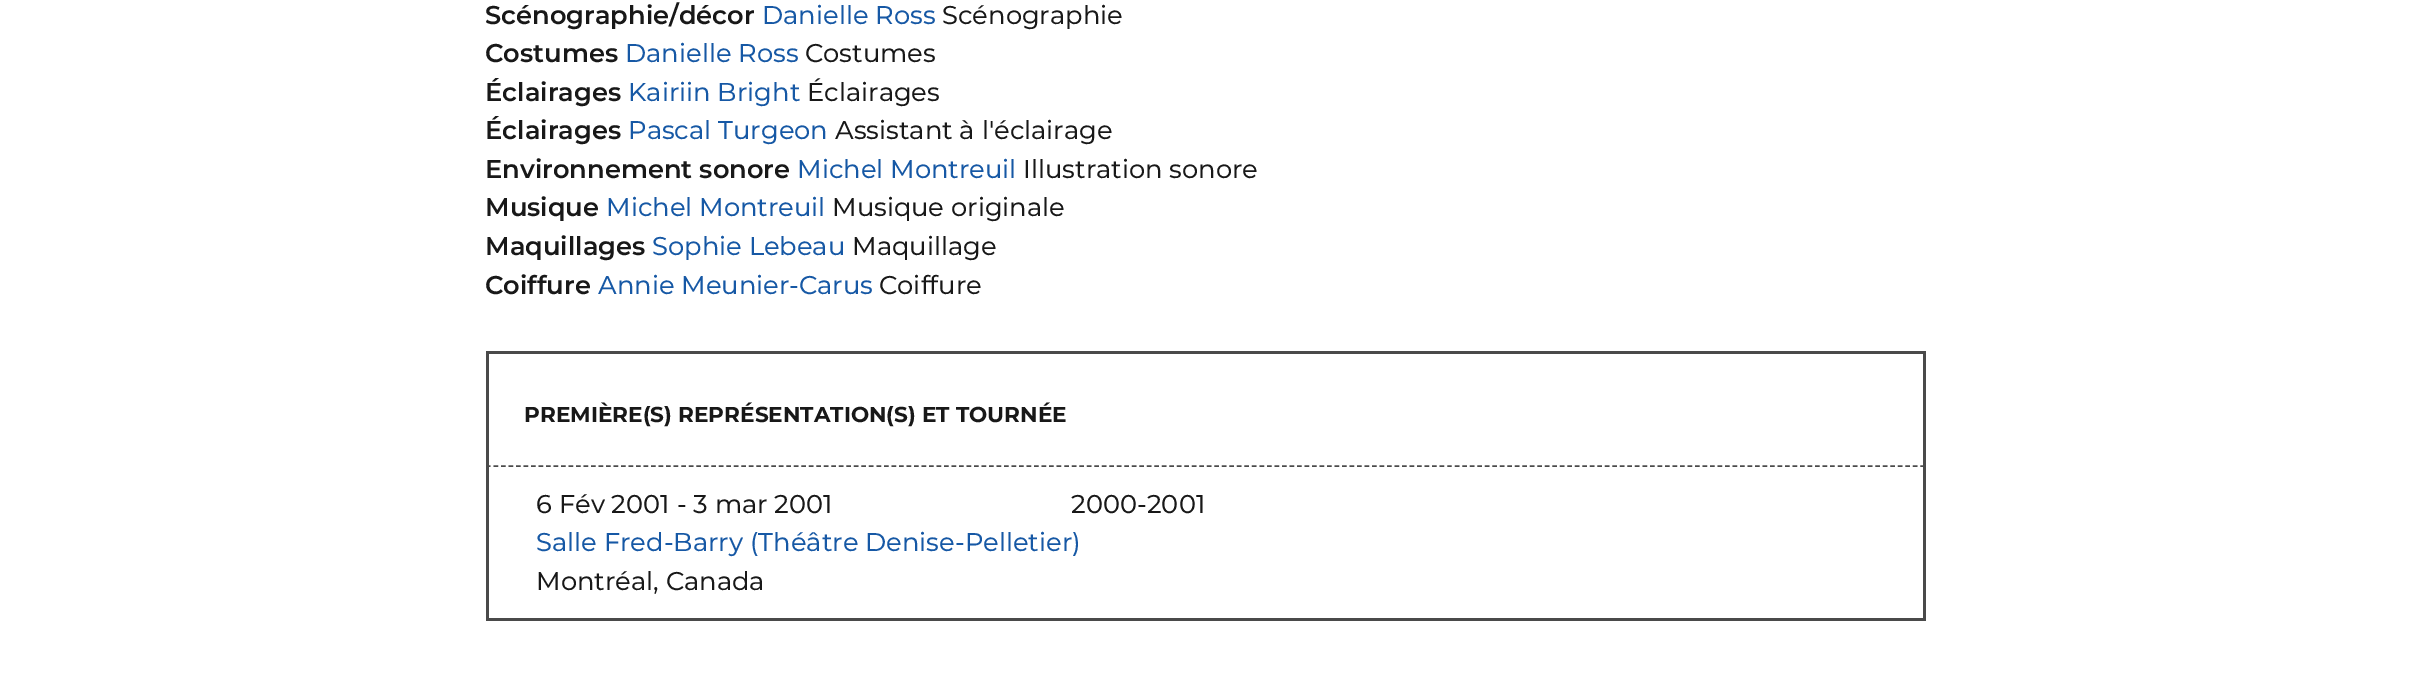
%!PS-Adobe-3.0
%%BoundingBox: 0 0 2410 682
%%LanguageLevel: 3
%%Pages: 1
%%EndComments
%%BeginProlog
/m { moveto } bind def
/l { lineto } bind def
/S { stroke } bind def
/w { setlinewidth } bind def
/fn { [ exch dup neg 0 0 3 -1 roll 0 0 ] selectfont } def
/tx { moveto show } def
/bx { rectfill } def
%%EndProlog
%%BeginSetup
<< /PageSize [2410 682] >> setpagedevice
%%EndSetup
%%Page: 1 1
0 682 translate 1 -1 scale
4 setmiterlimit
1 setgray
0 0 2410 682 bx
/Montserrat-SemiBold 25.7 fn
0.094 setgray
(Scénographie/décor) 485 24 tx
/Montserrat-Regular 25.7 fn
0.086 0.345 0.647 setrgbcolor
(Danielle Ross) 762 24 tx
0.094 setgray
(Scénographie) 942 24 tx
/Montserrat-SemiBold 25.7 fn
(Costumes) 485 62 tx
/Montserrat-Regular 25.7 fn
0.086 0.345 0.647 setrgbcolor
(Danielle Ross) 625 62 tx
0.094 setgray
(Costumes) 805 62 tx
/Montserrat-SemiBold 25.7 fn
(Éclairages) 485 101 tx
/Montserrat-Regular 25.7 fn
0.086 0.345 0.647 setrgbcolor
(Kairiin Bright) 628 101 tx
0.094 setgray
(Éclairages) 807 101 tx
/Montserrat-SemiBold 25.7 fn
(Éclairages) 485 139 tx
/Montserrat-Regular 25.7 fn
0.086 0.345 0.647 setrgbcolor
(Pascal Turgeon) 628 139 tx
0.094 setgray
(Assistant à l'éclairage) 835 139 tx
/Montserrat-SemiBold 25.7 fn
(Environnement sonore) 485 178 tx
/Montserrat-Regular 25.7 fn
0.086 0.345 0.647 setrgbcolor
(Michel Montreuil) 797 178 tx
0.094 setgray
(Illustration sonore) 1023 178 tx
/Montserrat-SemiBold 25.7 fn
(Musique) 485 216 tx
/Montserrat-Regular 25.7 fn
0.086 0.345 0.647 setrgbcolor
(Michel Montreuil) 606 216 tx
0.094 setgray
(Musique originale) 832 216 tx
/Montserrat-SemiBold 25.7 fn
(Maquillages) 485 255 tx
/Montserrat-Regular 25.7 fn
0.086 0.345 0.647 setrgbcolor
(Sophie Lebeau) 652 255 tx
0.094 setgray
(Maquillage) 852 255 tx
/Montserrat-SemiBold 25.7 fn
(Coiffure) 485 294 tx
/Montserrat-Regular 25.7 fn
0.086 0.345 0.647 setrgbcolor
(Annie Meunier-Carus) 598 294 tx
0.094 setgray
(Coiffure) 879 294 tx
0.29 setgray
486 351 1440 3 bx
1923 351 3 114 bx
486 351 3 114 bx
/Montserrat-Bold 21.6 fn
0.094 setgray
(PREMIÈRE\(S\) REPRÉSENTATION\(S\) ET TOURNÉE) 524 422 tx
0.29 setgray
1.5 w
[4.5 3.01] 0 setdash
486 466 m 1926 466 l S
1923 465 3 153 bx
486 465 3 153 bx
/Montserrat-Regular 25.7 fn
0.094 setgray
(6 Fév 2001 - 3 mar 2001) 536 513 tx
(2000-2001) 1071 513 tx
0.086 0.345 0.647 setrgbcolor
(Salle Fred-Barry \(Théâtre Denise-Pelletier\)) 536 551 tx
0.094 setgray
(Montréal, Canada) 536 590 tx
0.29 setgray
486 618 1440 3 bx
showpage
%%EOF
